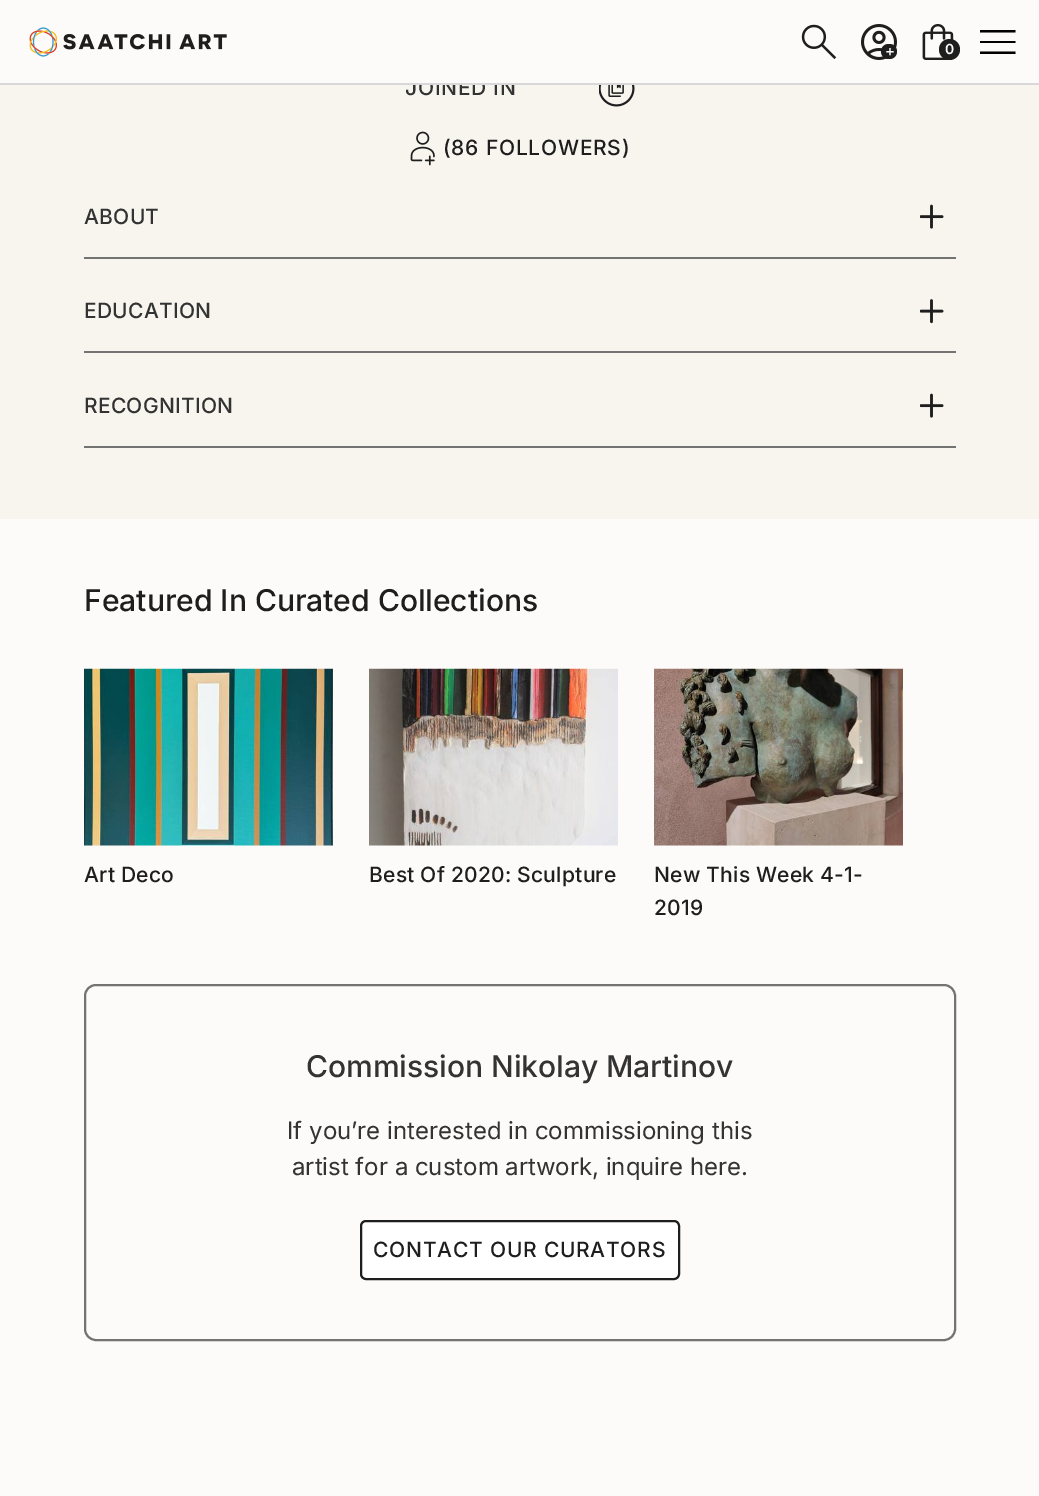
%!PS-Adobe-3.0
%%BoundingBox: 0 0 1039 1496
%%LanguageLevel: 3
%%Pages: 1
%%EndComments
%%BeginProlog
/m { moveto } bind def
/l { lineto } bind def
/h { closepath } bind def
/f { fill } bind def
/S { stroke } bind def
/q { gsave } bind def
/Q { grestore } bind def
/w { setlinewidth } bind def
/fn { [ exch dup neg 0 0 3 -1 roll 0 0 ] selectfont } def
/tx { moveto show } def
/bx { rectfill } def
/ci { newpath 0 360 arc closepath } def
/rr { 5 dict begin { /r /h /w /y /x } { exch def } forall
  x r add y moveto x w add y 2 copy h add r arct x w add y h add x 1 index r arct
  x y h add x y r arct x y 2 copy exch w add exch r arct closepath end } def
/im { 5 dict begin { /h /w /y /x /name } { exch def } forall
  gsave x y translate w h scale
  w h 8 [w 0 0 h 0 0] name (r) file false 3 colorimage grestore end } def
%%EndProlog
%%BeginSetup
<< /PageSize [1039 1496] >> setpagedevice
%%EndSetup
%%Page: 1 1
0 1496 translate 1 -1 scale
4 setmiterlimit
0.988 0.984 0.976 setrgbcolor
0 0 1039 1496 bx
0.973 0.961 0.933 setrgbcolor
0 85 1039 434 bx
/Inter-Medium 21 fn
0.2 setgray
405 95 m 0.75 0 (JOINED IN) ashow
0.988 0.984 0.976 setrgbcolor
413 79 102 4 bx
0.847 setgray
0 83 1039 2 bx
(image0.raw) 29 27 198 30 im
(image1.raw) 801 24 36 35 im
(image2.raw) 861 24 36 36 im
0.118 setgray
881 44 16 15 7.5 rr f
/Inter-SemiBold 15 fn
0.988 0.984 0.976 setrgbcolor
(+) 885 56 tx
(image3.raw) 922 24 32 36 im
0.118 setgray
949.5 49.5 10.5 ci f
/Inter-SemiBold 14 fn
0.988 0.984 0.976 setrgbcolor
(0) 945 54 tx
q
980 24 36 36 rectclip
0 setgray
979.5 54 m 979.5 51.5 l 1015.5 51.5 l 1015.5 54 l h 979.5 43 m 979.5 41 l 1015.5 41 l 1015.5 43 l h 979.5 32.5 m 979.5 30 l 1015.5 30 l 1015.5 32.5 l h f
Q
(image4.raw) 599 85 36 22 im
(image5.raw) 410 131 25 35 im
/Inter-Medium 21 fn
0.118 setgray
443 155 m 0.75 0 (\(86 FOLLOWERS\)) ashow
0.2 setgray
84 224 m 0.25 0 (ABOUT) ashow
(image6.raw) 920 204 24 25 im
0.451 setgray
84 257 872 2 bx
0.2 setgray
84 318 m 0.25 0 (EDUCATION) ashow
(image7.raw) 920 299 24 25 im
0.451 setgray
84 351 872 2 bx
0.2 setgray
84 413 m 0.25 0 (RECOGNITION) ashow
(image6.raw) 920 393 24 25 im
0.451 setgray
84 446 872 2 bx
/Inter-Medium 30 fn
0.118 setgray
(Featured In Curated Collections) 84 611 tx
(image8.raw) 84 668 249 178 im
/Inter-Medium 21 fn
84 882 m 0.25 0 (Art Deco) ashow
(image9.raw) 369 668 249 178 im
369 882 m 0.25 0 (Best Of 2020: Sculpture) ashow
(image10.raw) 654 668 249 178 im
654 882 m 0.25 0 (New This Week 4-1-) ashow
654 915 m 0.25 0 (2019) ashow
0.451 setgray
2 w
85 985 870 355 11 rr S
/Inter-Medium 30 fn
0.2 setgray
(Commission Nikolay Martinov) 306 1077 tx
/Inter-Regular 24 fn
(If you’re interested in commissioning this) 287 1139 tx
(artist for a custom artwork, inquire here.) 292 1175 tx
1 setgray
361 1221 318 58 5 rr q f Q
0.118 setgray
S
/Inter-Medium 21 fn
373 1257 m 0.75 0 (CONTACT OUR CURATORS) ashow
showpage
%%EOF
